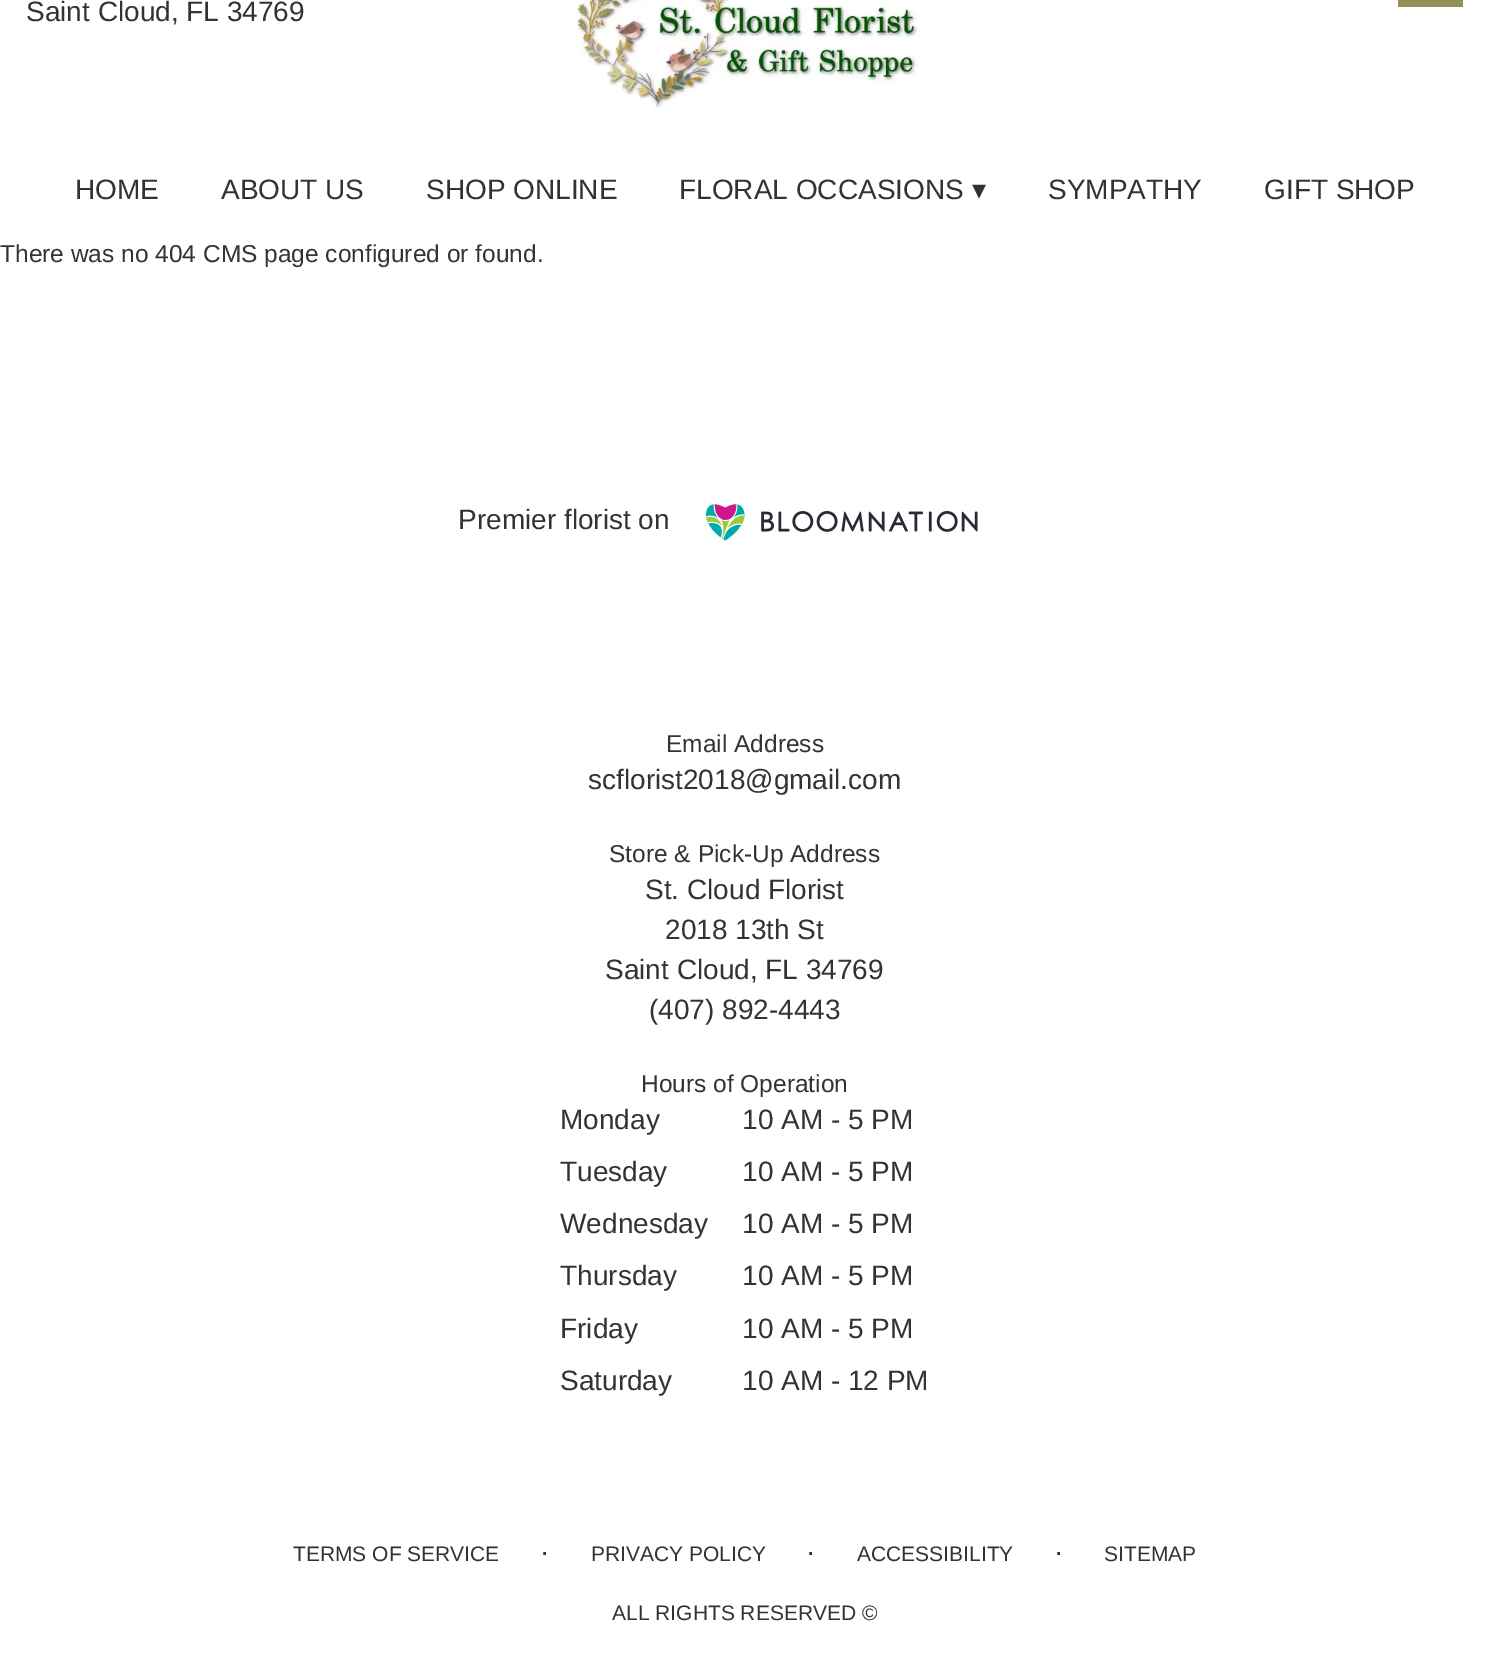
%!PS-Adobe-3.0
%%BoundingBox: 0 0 1488 1661
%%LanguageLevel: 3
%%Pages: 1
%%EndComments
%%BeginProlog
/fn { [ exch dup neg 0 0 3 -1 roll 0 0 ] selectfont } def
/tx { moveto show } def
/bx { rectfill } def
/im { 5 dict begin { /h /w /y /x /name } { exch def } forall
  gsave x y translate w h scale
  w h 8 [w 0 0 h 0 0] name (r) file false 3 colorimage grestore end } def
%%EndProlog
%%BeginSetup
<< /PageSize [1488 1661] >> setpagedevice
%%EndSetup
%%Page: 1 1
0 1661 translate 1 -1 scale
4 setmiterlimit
1 setgray
0 0 1488 1661 bx
/LiberationSans-Regular 28 fn
0.2 setgray
(Saint Cloud, FL 34769) 26 21 tx
(image0.raw) 576 0 342 108 im
0.576 0.565 0.353 setrgbcolor
1398 0 65 7 bx
0.2 setgray
(HOME) 75 199 tx
(ABOUT US) 221 199 tx
(SHOP ONLINE) 426 199 tx
(FLORAL OCCASIONS) 679 199 tx
/DejaVuSans-Regular 28 fn
(▾) 972 199 tx
/LiberationSans-Regular 28 fn
(SYMPATHY) 1048 199 tx
(GIFT SHOP) 1264 199 tx
/LiberationSans-Regular 24.5 fn
(There was no 404 CMS page configured or found.) 0 262 tx
/LiberationSans-Regular 28 fn
(Premier florist on) 458 529 tx
(image1.raw) 706 504 272 37 im
/LiberationSans-Regular 24.5 fn
(Email Address) 666 752 tx
/LiberationSans-Regular 28 fn
(scflorist2018@gmail.com) 588 789 tx
/LiberationSans-Regular 24.5 fn
(Store & Pick-Up Address) 609 862 tx
/LiberationSans-Regular 28 fn
(St. Cloud Florist) 645 899 tx
(2018 13th St) 665 939 tx
(Saint Cloud, FL 34769) 605 979 tx
(\(407\) 892-4443) 649 1019 tx
/LiberationSans-Regular 24.5 fn
(Hours of Operation) 641 1092 tx
/LiberationSans-Regular 28 fn
(Monday) 560 1129 tx
(10 AM - 5 PM) 742 1129 tx
(Tuesday) 560 1181 tx
(10 AM - 5 PM) 742 1181 tx
(Wednesday) 560 1233 tx
(10 AM - 5 PM) 742 1233 tx
(Thursday) 560 1285 tx
(10 AM - 5 PM) 742 1285 tx
(Friday) 560 1338 tx
(10 AM - 5 PM) 742 1338 tx
(Saturday) 560 1390 tx
(10 AM - 12 PM) 742 1390 tx
/LiberationSans-Regular 21 fn
(TERMS OF SERVICE) 293 1561 tx
/LiberationSans-Regular 28 fn
(·) 540 1561 tx
/LiberationSans-Regular 21 fn
(PRIVACY POLICY) 591 1561 tx
/LiberationSans-Regular 28 fn
(·) 806 1561 tx
/LiberationSans-Regular 21 fn
(ACCESSIBILITY) 857 1561 tx
/LiberationSans-Regular 28 fn
(·) 1054 1561 tx
/LiberationSans-Regular 21 fn
(SITEMAP) 1104 1561 tx
(ALL RIGHTS RESERVED ©) 612 1620 tx
showpage
%%EOF
